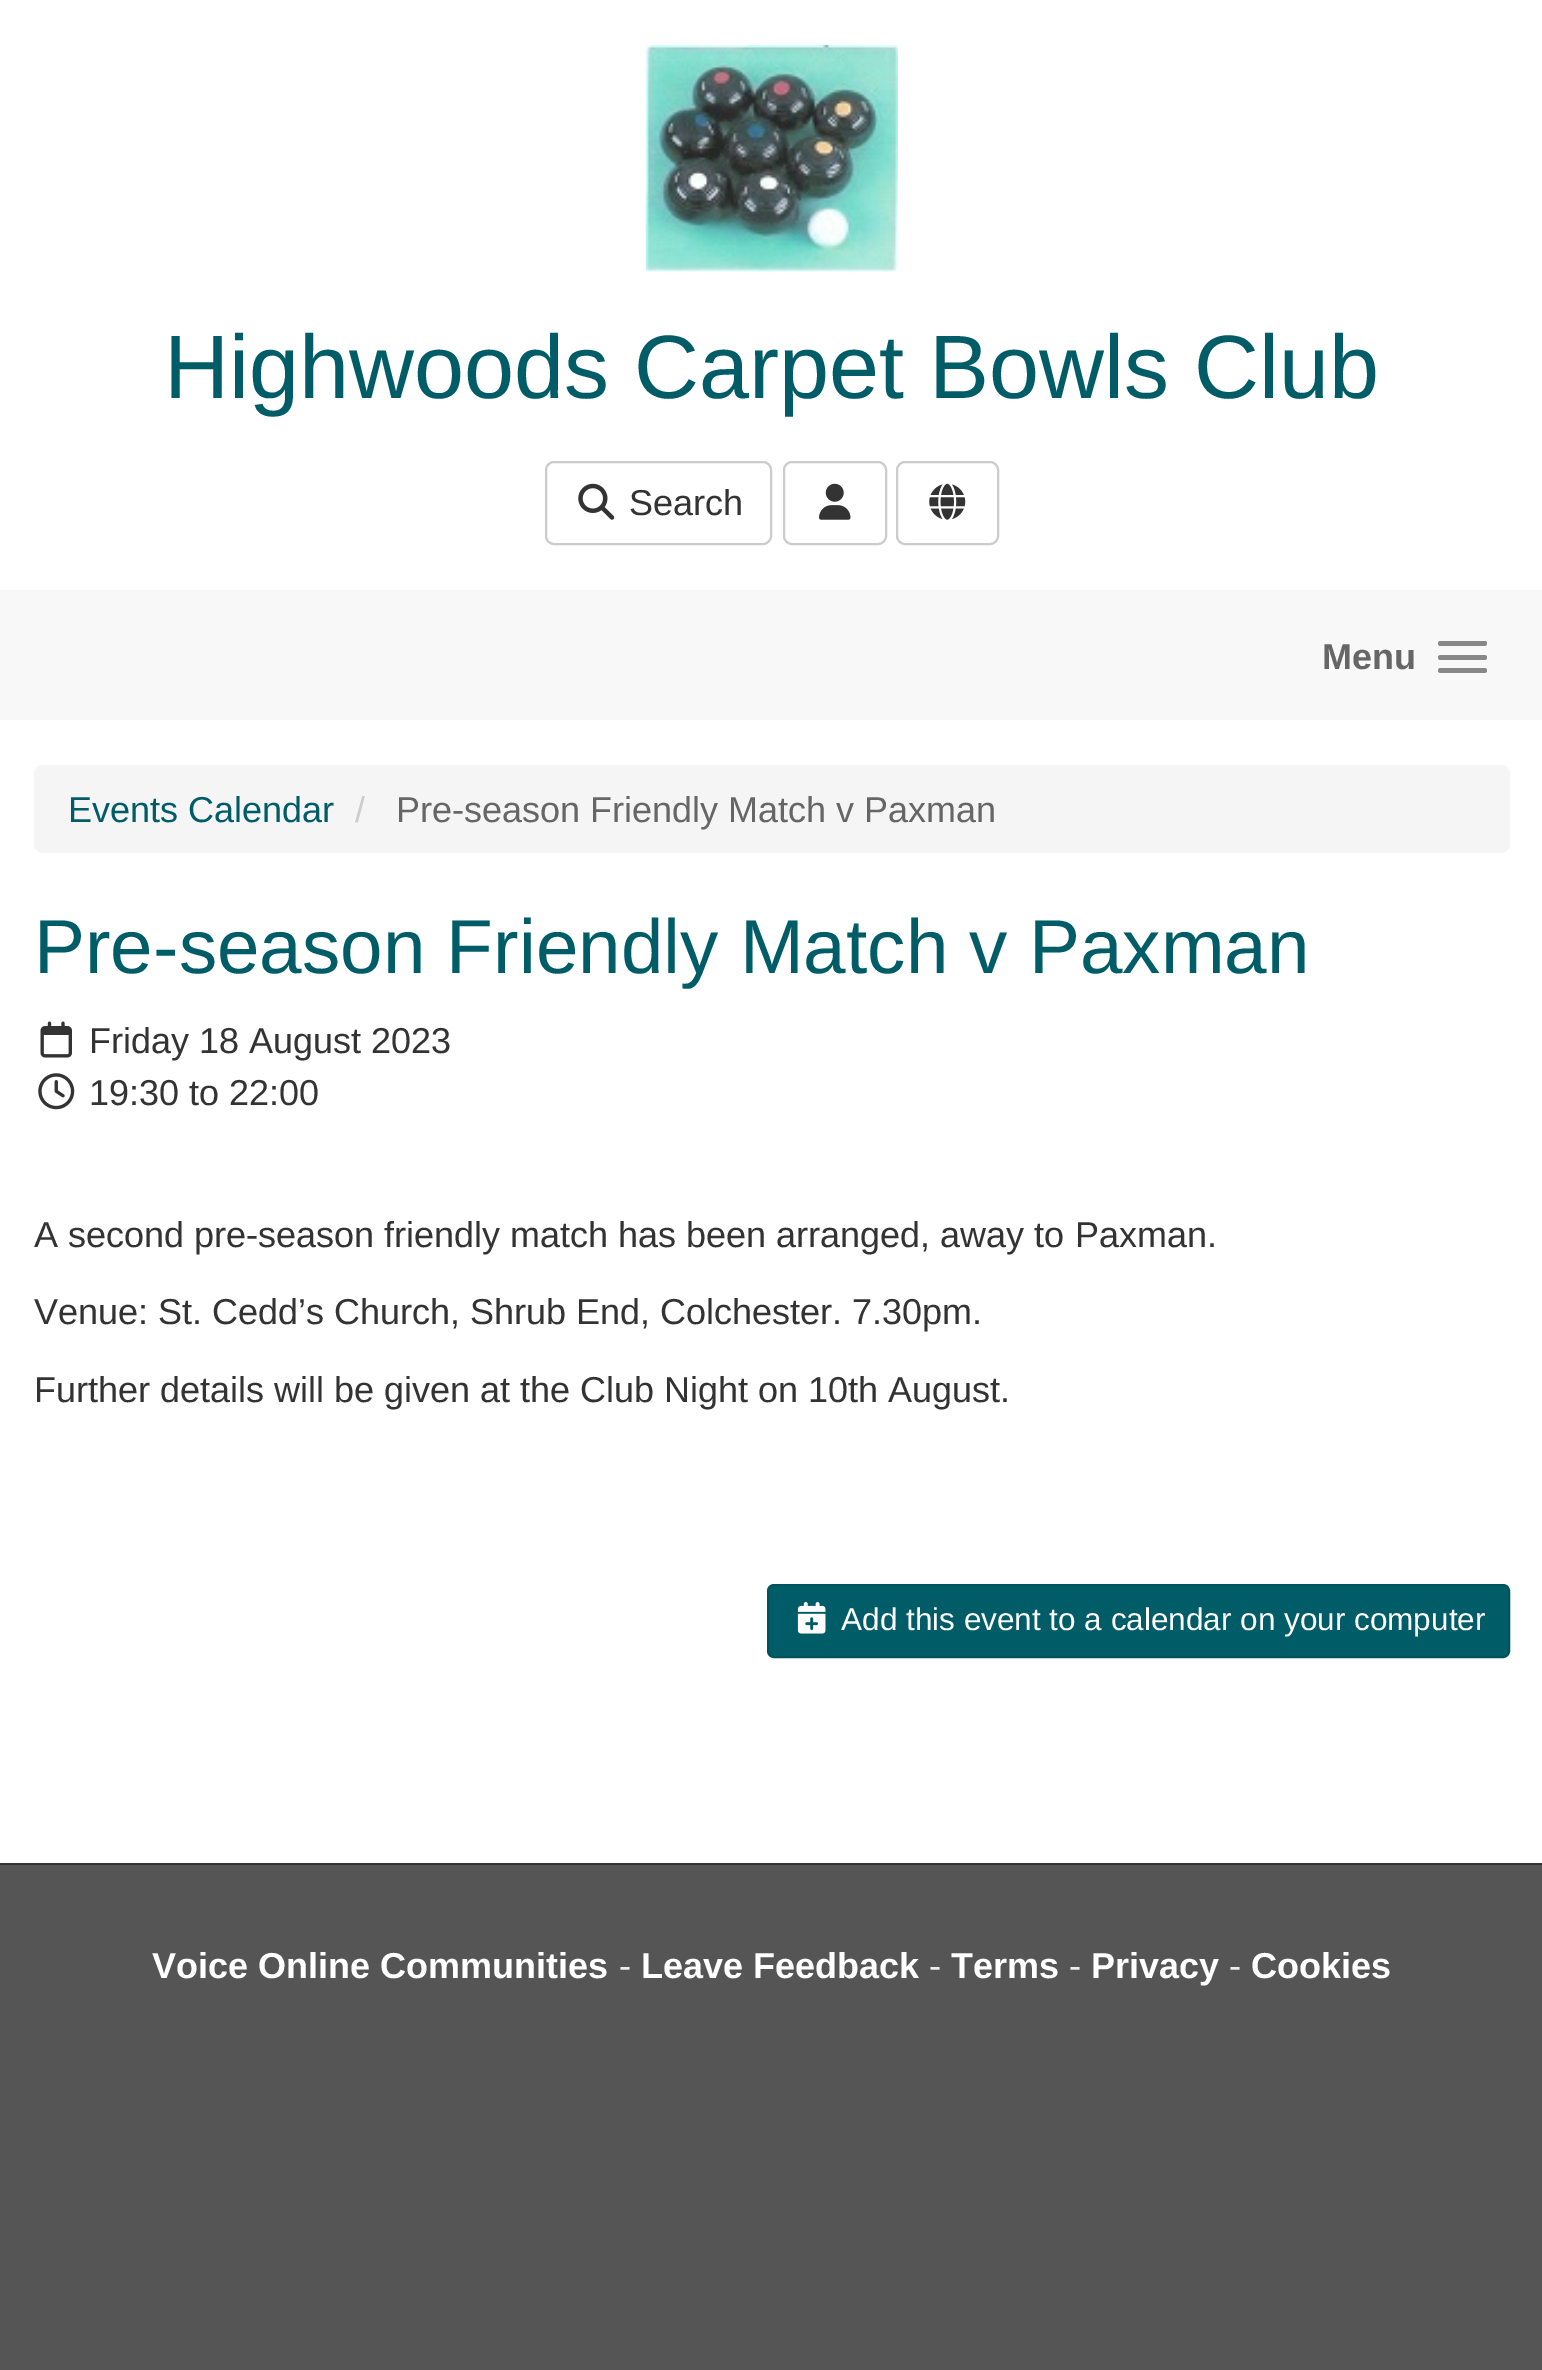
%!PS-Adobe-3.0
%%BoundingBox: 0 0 1542 2370
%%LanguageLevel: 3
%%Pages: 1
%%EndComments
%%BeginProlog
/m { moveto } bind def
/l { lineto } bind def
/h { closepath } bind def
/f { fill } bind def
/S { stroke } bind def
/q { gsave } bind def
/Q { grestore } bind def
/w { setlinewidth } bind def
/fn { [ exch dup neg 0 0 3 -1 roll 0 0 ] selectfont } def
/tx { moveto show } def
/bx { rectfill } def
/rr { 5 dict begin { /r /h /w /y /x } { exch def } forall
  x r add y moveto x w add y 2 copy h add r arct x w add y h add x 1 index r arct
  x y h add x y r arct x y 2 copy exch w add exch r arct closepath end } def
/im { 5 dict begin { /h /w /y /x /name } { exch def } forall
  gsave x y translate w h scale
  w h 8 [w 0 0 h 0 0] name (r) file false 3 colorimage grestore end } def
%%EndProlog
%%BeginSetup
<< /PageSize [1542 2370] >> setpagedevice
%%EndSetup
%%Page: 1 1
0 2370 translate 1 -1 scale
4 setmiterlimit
1 setgray
0 0 1542 2370 bx
(image0.raw) 645 45 253 227 im
/LiberationSans-Regular 90 fn
0 0.361 0.4 setrgbcolor
(Highwoods Carpet Bowls Club) 164 398 tx
0.8 setgray
2 w
546 462 225 82 8 rr S
(image1.raw) 578 483 37 37 im
/LiberationSans-Regular 36 fn
0.2 setgray
(Search) 629 515 tx
0.8 setgray
784 462 102 82 8 rr S
(image2.raw) 819 483 32 37 im
897 462 101 82 8 rr S
(image3.raw) 929 483 37 37 im
0.973 setgray
0 590 1542 130 bx
/LiberationSans-Bold 36 fn
0.4 setgray
(Menu) 1322 669 tx
0.533 setgray
1438 641 49 5 2.5 rr f
1438 655 49 5 2.5 rr f
1438 668 49 5 2.5 rr f
0.961 setgray
34 765 1476 88 9 rr f
/LiberationSans-Regular 36 fn
0 0.361 0.4 setrgbcolor
(Events Calendar) 68 822 tx
0.8 setgray
(/) 355 822 tx
0.4 setgray
(Pre-season Friendly Match v Paxman) 396 822 tx
/LiberationSans-Regular 76.5 fn
0 0.361 0.4 setrgbcolor
(Pre-season Friendly Match v Paxman) 34 973 tx
(image4.raw) 40 1021 32 37 im
/LiberationSans-Regular 36 fn
0.2 setgray
(Friday 18 August 2023) 89 1053 tx
(image5.raw) 38 1073 37 37 im
(19:30 to 22:00) 89 1105 tx
(A second pre-season friendly match has been arranged, away to Paxman.) 34 1247 tx
(Venue: St. Cedd’s Church, Shrub End, Colchester. 7.30pm.) 34 1324 tx
(Further details will be given at the Club Night on 10th August.) 34 1402 tx
0 0.361 0.4 setrgbcolor
768 1585 741 72 6 rr q f Q
0 0.322 0.357 setrgbcolor
S
(image6.raw) 797 1602 29 32 im
/LiberationSans-Regular 31.5 fn
1 setgray
(Add this event to a calendar on your computer) 841 1630 tx
0.333 setgray
-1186 1863 m -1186 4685 l 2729 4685 l 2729 1863 l 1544 1863 l 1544 2313 l 0 2313 l 0 1863 l h f
0 1865 1542 448 bx
0.2 setgray
0 1863 1542 2 bx
/LiberationSans-Bold 36 fn
1 setgray
(Voice Online Communities) 152 1978 tx
/LiberationSans-Regular 36 fn
0.933 setgray
(-) 619 1978 tx
/LiberationSans-Bold 36 fn
1 setgray
(Leave Feedback) 641 1978 tx
/LiberationSans-Regular 36 fn
0.933 setgray
(-) 929 1978 tx
/LiberationSans-Bold 36 fn
1 setgray
(Terms) 951 1978 tx
/LiberationSans-Regular 36 fn
0.933 setgray
(-) 1069 1978 tx
/LiberationSans-Bold 36 fn
1 setgray
(Privacy) 1091 1978 tx
/LiberationSans-Regular 36 fn
0.933 setgray
(-) 1229 1978 tx
/LiberationSans-Bold 36 fn
1 setgray
(Cookies) 1251 1978 tx
showpage
%%EOF
